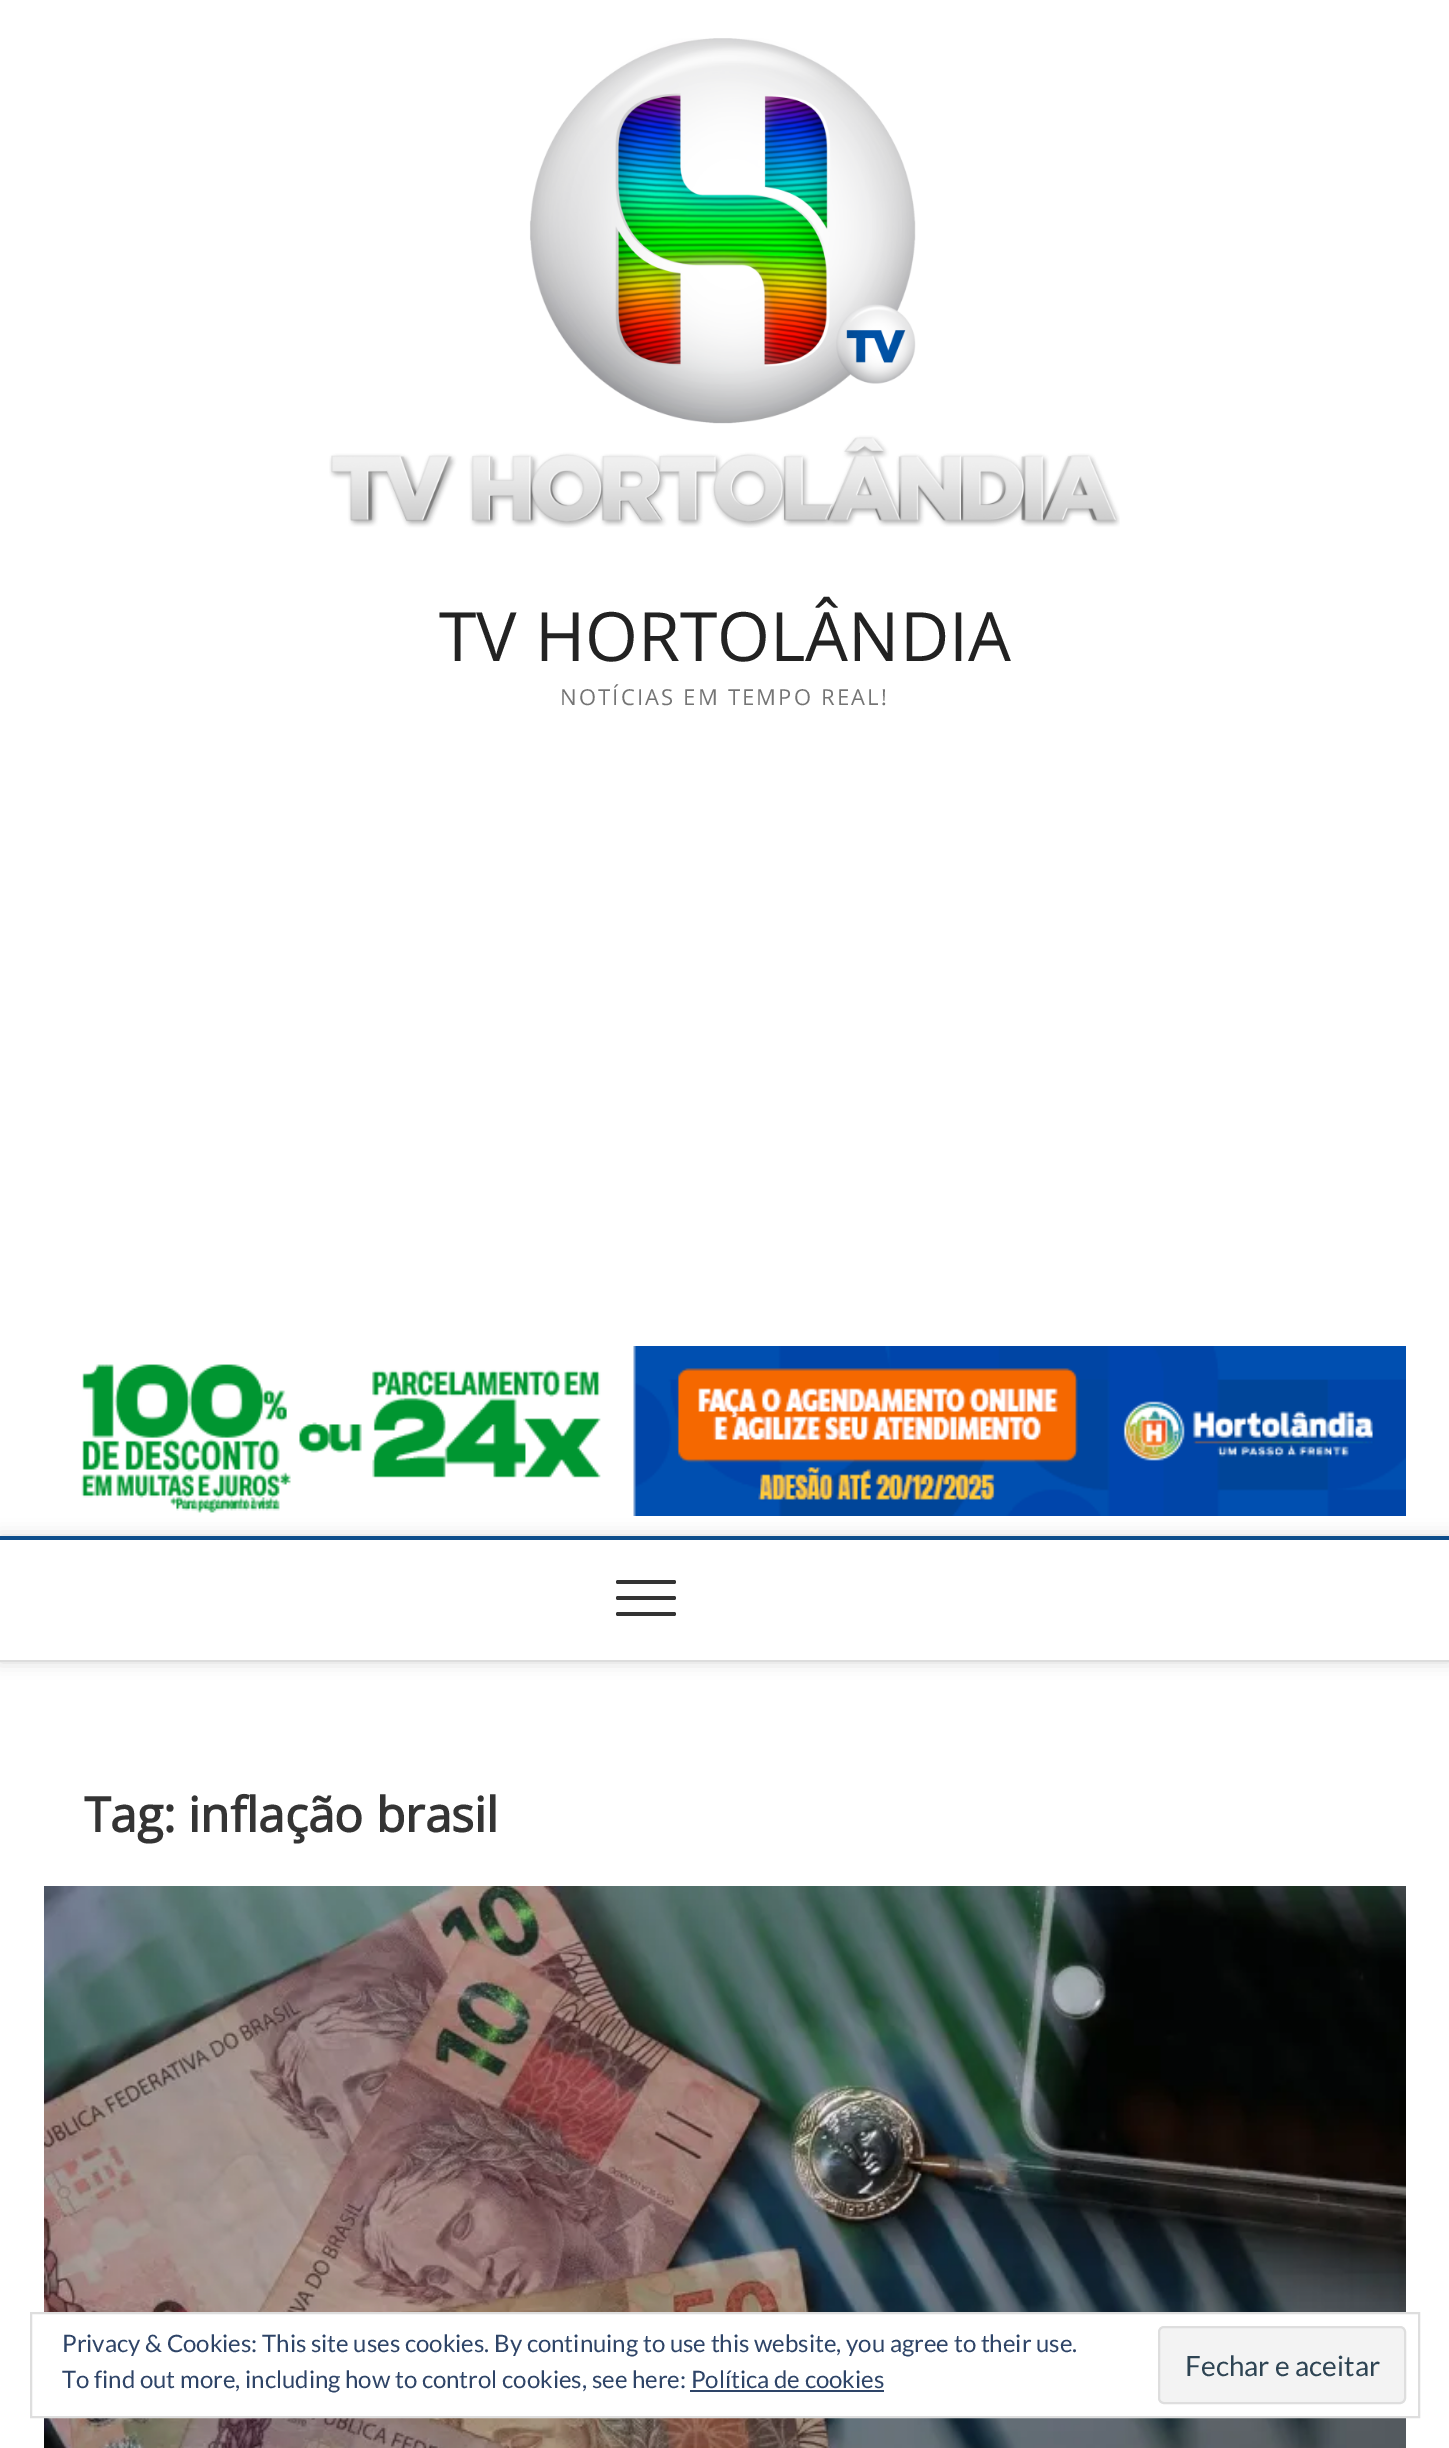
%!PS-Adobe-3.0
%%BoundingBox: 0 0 1449 2448
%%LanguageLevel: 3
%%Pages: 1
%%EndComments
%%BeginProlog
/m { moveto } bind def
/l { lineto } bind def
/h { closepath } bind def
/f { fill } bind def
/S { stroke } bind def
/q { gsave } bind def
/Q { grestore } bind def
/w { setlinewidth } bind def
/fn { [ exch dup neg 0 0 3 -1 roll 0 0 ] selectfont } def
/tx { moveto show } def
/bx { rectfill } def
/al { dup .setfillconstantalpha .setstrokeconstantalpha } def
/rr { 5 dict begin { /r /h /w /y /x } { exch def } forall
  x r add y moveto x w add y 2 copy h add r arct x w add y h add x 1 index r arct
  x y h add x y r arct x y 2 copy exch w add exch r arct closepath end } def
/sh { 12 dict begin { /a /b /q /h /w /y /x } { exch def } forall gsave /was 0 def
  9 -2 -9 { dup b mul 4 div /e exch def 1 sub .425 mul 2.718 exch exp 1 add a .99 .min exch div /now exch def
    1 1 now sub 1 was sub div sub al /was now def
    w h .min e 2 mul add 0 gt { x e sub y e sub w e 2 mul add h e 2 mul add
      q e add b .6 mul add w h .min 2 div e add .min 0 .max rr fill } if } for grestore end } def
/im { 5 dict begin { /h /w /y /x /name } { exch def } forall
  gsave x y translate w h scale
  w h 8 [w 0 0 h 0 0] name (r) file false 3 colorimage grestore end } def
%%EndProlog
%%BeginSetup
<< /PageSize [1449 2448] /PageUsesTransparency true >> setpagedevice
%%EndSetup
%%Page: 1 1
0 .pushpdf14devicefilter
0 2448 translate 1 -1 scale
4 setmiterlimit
1 setgray
0 0 1449 2448 bx
(image0.raw) 329 38 791 490 im
/OpenSans-Regular 68 fn
0.133 setgray
(TV HORTOLÂNDIA) 439 661 tx
/OpenSans-Regular 22 fn
0.455 setgray
560 705 m 2.2 0 (NOTÍCIAS EM TEMPO REAL!) ashow
(image1.raw) 81 1346 1325 170 im
q
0 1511 m 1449 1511 l 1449 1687 l 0 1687 l h 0 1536 m 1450 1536 l 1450 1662 l 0 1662 l h eoclip newpath
0 setgray
0 1536 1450 126 0 8 0.15 sh
Q
0.047 0.298 0.541 setrgbcolor
0 1536 1449 4 bx
0.867 setgray
0 1660 1449 2 bx
0.2 setgray
616 1596 60 4 2 rr f
616 1580 60 4 2 rr f
616 1612 60 4 2 rr f
/OpenSans-Bold 48 fn
0.204 setgray
(Tag: inflação brasil) 84 1832 tx
(image2.raw) 44 1886 1362 562 im
1 setgray
44 2314 1362 102 bx
0.871 setgray
2 w
31 2313 1388 104 rectstroke
/Lato-Regular 24 fn
0.18 0.267 0.404 setrgbcolor
(Privacy & Cookies: This site uses cookies. By continuing to use this website, you agree to their use.) 62 2352 tx
0.953 setgray
1159 2327 246 76 5 rr q f Q
0.871 setgray
S
/Lato-Regular 28 fn
0.18 0.267 0.325 setrgbcolor
(Fechar e aceitar) 1185 2376 tx
/Lato-Regular 24 fn
0.18 0.267 0.404 setrgbcolor
(To find out more, including how to control cookies, see here: Política de cookies) 62 2388 tx
690 2390 194 2 bx
.poppdf14devicefilter showpage
%%EOF
